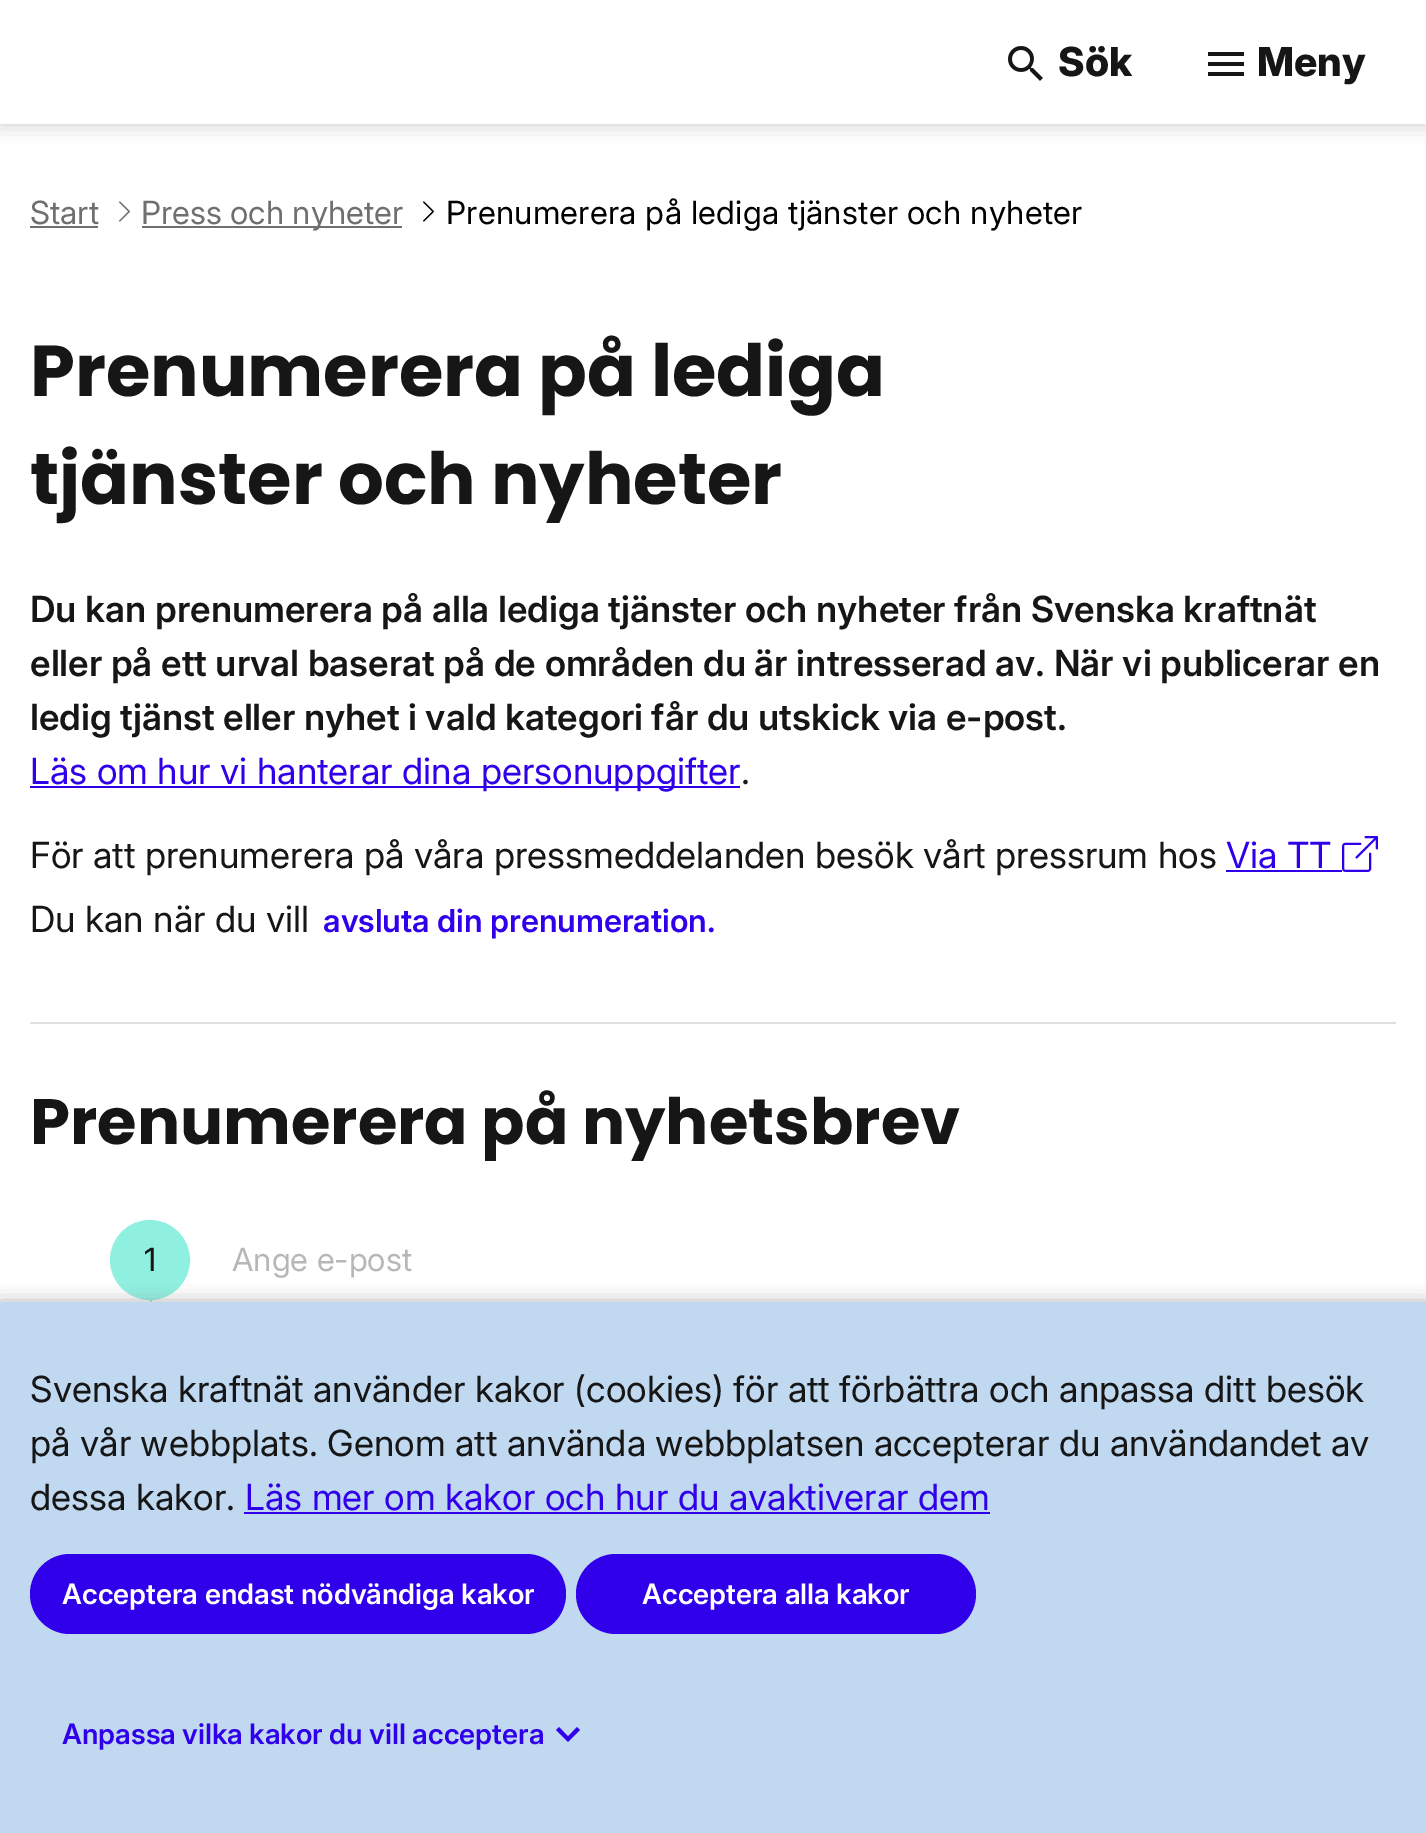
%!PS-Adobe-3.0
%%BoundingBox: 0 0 1426 1833
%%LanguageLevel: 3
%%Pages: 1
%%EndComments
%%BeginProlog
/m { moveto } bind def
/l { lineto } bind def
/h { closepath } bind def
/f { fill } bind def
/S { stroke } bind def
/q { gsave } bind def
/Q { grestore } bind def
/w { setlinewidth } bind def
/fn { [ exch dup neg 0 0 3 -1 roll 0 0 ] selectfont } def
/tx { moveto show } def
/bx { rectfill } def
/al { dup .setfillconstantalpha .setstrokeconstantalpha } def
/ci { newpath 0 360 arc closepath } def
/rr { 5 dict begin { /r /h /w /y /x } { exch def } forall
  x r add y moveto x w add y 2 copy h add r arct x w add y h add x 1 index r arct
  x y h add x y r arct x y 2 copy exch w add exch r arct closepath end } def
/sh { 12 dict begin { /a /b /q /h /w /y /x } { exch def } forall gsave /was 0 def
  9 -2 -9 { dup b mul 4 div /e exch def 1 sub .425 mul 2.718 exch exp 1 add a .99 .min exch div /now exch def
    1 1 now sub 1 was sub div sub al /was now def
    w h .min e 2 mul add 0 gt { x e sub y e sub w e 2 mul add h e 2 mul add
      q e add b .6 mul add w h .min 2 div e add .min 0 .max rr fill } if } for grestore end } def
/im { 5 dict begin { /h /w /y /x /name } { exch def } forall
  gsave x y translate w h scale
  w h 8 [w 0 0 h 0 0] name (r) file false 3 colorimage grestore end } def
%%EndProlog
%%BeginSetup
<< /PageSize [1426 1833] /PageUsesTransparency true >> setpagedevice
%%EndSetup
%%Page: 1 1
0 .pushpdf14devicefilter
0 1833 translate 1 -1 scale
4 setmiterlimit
1 setgray
0 0 1426 1833 bx
q
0 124 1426 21 rectclip
0.776 setgray
0 0 1426 124 0 10 1 sh
Q
(image0.raw) 1008 46 35 35 im
/Inter-ExtraBold 40 fn
0.086 setgray
(Sök) 1058 76 tx
1208 52 m 1244 52 l 1244 56 l 1208 56 l h 1208 66 m 1208 62 l 1244 62 l 1244 66 l h 1208 76 m 1208 72 l 1244 72 l 1244 76 l h f
(Meny) 1257 76 tx
/Inter-Regular 32 fn
0.435 setgray
(Start) 30 224 tx
30 226 68 2 bx
(image1.raw) 119 201 11 21 im
142 226 260 2 bx
(Press och nyheter) 141 224 tx
(image2.raw) 423 201 11 21 im
0 setgray
446 224 m 0.3 0 (Prenumerera på lediga tjänster och nyheter) ashow
/Poppins-Bold 72 fn
0.086 setgray
(Prenumerera på lediga) 30 396 tx
(tjänster och nyheter) 30 504 tx
/Inter-SemiBold 36 fn
(Du kan prenumerera på alla lediga tjänster och nyheter från Svenska kraftnät) 30 622 tx
(eller på ett urval baserat på de områden du är intresserad av. När vi publicerar en) 30 676 tx
(ledig tjänst eller nyhet i vald kategori får du utskick via e-post.) 30 730 tx
0.188 0 0.922 setrgbcolor
30 786 710 2 bx
/Inter-Regular 36 fn
(Läs om hur vi hanterar dina personuppgifter) 30 784 tx
0.086 setgray
(.) 741 784 tx
(För att prenumerera på våra pressmeddelanden besök vårt pressrum hos) 30 868 tx
0.188 0 0.922 setrgbcolor
(Via TT) 1226 868 tx
1226 870 116 2 bx
(image3.raw) 1342 836 36 36 im
0.086 setgray
(Du kan när du vill) 30 932 tx
/Inter-SemiBold 31.5 fn
0.188 0 0.922 setrgbcolor
(avsluta din prenumeration.) 323 932 tx
0.878 setgray
30 1022 1366 2 bx
/Poppins-Bold 64 fn
0.086 setgray
(Prenumerera på nyhetsbrev) 30 1144 tx
0.561 0.941 0.878 setrgbcolor
150 1220 2 82 bx
150 1260 39 ci q f Q
2 w
S
/Inter-Regular 32 fn
0.086 setgray
(1) 144 1271 tx
0.718 setgray
(Ange e-post) 232 1271 tx
0.533 setgray
0 1306 1426 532 0 10 1 sh
0.753 0.847 0.941 setrgbcolor
0 1302 1426 531 bx
/Inter-Regular 36 fn
0.086 setgray
(Svenska kraftnät använder kakor \(cookies\) för att förbättra och anpassa ditt besök) 30 1402 tx
(på vår webbplats. Genom att använda webbplatsen accepterar du användandet av) 30 1456 tx
(dessa kakor.) 30 1510 tx
0.188 0 0.922 setrgbcolor
(Läs mer om kakor och hur du avaktiverar dem) 245 1510 tx
244 1512 746 2 bx
30 1554 536 80 40 rr f
/Inter-SemiBold 28 fn
1 setgray
(Acceptera endast nödvändiga kakor) 62 1604 tx
0.188 0 0.922 setrgbcolor
576 1554 400 80 40 rr f
1 setgray
(Acceptera alla kakor) 642 1604 tx
0.188 0 0.922 setrgbcolor
(Anpassa vilka kakor du vill acceptera) 62 1744 tx
559 1727 m 568 1736.5 l 577 1727 l 580 1730 l 568 1742 l 556 1730 l h f
.poppdf14devicefilter showpage
%%EOF
